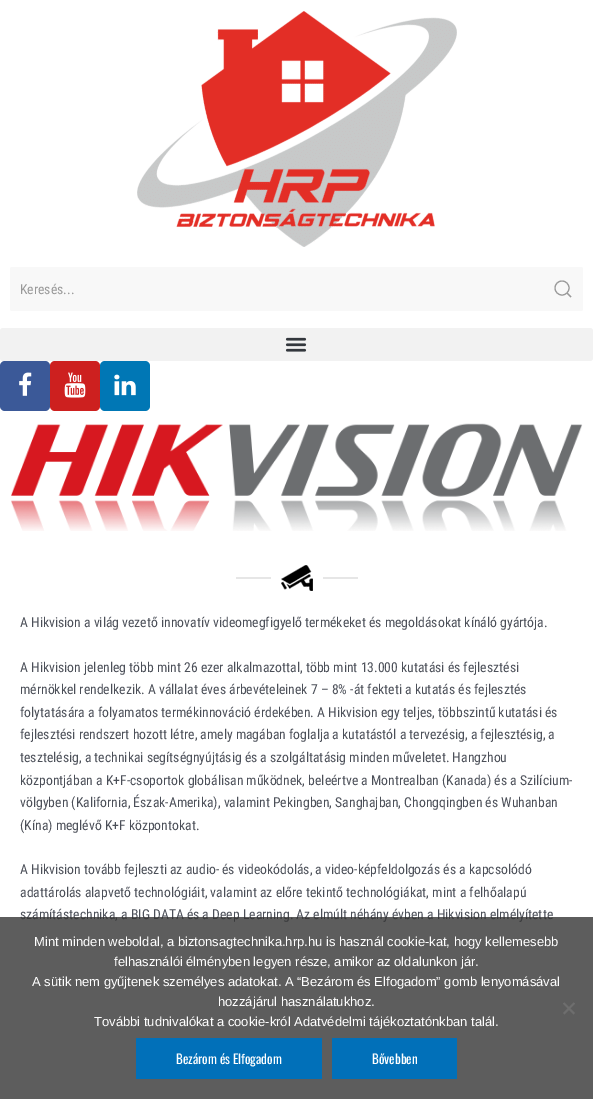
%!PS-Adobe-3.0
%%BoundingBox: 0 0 593 1099
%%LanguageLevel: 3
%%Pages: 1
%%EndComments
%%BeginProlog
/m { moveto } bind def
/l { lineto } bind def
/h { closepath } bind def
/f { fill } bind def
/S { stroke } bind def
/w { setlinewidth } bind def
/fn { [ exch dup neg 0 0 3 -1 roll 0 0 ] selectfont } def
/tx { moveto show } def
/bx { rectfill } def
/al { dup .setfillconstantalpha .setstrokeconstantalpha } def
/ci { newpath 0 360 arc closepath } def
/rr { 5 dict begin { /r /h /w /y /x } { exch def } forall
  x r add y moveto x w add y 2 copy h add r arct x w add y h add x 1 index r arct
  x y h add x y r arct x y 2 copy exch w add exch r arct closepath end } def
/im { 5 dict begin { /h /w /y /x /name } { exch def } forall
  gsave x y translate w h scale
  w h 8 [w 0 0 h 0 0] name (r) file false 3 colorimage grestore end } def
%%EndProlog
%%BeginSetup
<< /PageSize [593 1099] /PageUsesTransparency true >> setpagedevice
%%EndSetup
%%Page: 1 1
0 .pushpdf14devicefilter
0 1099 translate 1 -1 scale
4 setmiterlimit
1 setgray
0 0 593 1099 bx
(image0.raw) 137 11 320 236 im
0.973 setgray
10 267 573 44 2 rr f
/RobotoCondensed-Regular 13.7 fn
0.6 setgray
(Keresés...) 20 294 tx
1.1 w
562 288 7 ci S
567 293 m 571 297 l h S
0.949 setgray
0 328 593 33 3 rr f
(image1.raw) 285 337 22 15 im
0.231 0.349 0.596 setrgbcolor
0 361 50 50 5 rr f
(image2.raw) 19 372 13 24 im
0.804 0.125 0.122 setrgbcolor
50 361 50 50 5 rr f
(image3.raw) 64 372 22 26 im
0 0.467 0.71 setrgbcolor
100 361 50 50 5 rr f
(image4.raw) 114 374 22 22 im
(image5.raw) 11 423 572 108 im
(image6.raw) 236 565 122 26 im
0.294 0.31 0.345 setrgbcolor
(A Hikvision a világ vezető innovatív videomegfigyelő termékeket és megoldásokat kínáló gyártója.) 20 627 tx
(A Hikvision jelenleg több mint 26 ezer alkalmazottal, több mint 13.000 kutatási és fejlesztési) 20 672 tx
(mérnökkel rendelkezik. A vállalat éves árbevételeinek 7 – 8% -át fekteti a kutatás és fejlesztés) 20 694 tx
(folytatására a folyamatos termékinnováció érdekében. A Hikvision egy teljes, többszintű kutatási és) 20 717 tx
(fejlesztési rendszert hozott létre, amely magában foglalja a kutatástól a tervezésig, a fejlesztésig, a) 20 739 tx
(tesztelésig, a technikai segítségnyújtásig és a szolgáltatásig minden műveletet. Hangzhou) 20 762 tx
(központjában a K+F-csoportok globálisan működnek, beleértve a Montrealban \(Kanada\) és a Szilícium-) 20 785 tx
(völgyben \(Kalifornia, Észak-Amerika\), valamint Pekingben, Sanghajban, Chongqingben és Wuhanban) 20 807 tx
(\(Kína\) meglévő K+F központokat.) 20 830 tx
(A Hikvision tovább fejleszti az audio- és videokódolás, a video-képfeldolgozás és a kapcsolódó) 20 874 tx
(adattárolás alapvető technológiáit, valamint az előre tekintő technológiákat, mint a felhőalapú) 20 897 tx
(számítástechnika, a BIG DATA és a Deep Learning. Az elmúlt néhány évben a Hikvision elmélyítette) 20 919 tx
0.8 al
0.204 setgray
0 917 593 182 bx
/LiberationSans-Regular 13 fn
1 al
1 setgray
(Mint minden weboldal, a biztonsagtechnika.hrp.hu is használ cookie-kat, hogy kellemesebb) 34 946 tx
(felhasználói élményben legyen része, amikor az oldalunkon jár.) 114 966 tx
(A sütik nem gyűjtenek személyes adatokat. A “Bezárom és Elfogadom” gomb lenyomásával) 32 986 tx
(hozzájárul használatukhoz.) 218 1006 tx
(További tudnivalókat a cookie-król Adatvédelmi tájékoztatónkban talál.) 94 1026 tx
0.431 setgray
573.5 1002.5 m 575 1003.5 l 564.5 1014.5 l 563 1013 l h f
563 1003.5 m 564.5 1002.5 l 575 1013 l 573.5 1014.5 l h f
0.004 0.439 0.725 setrgbcolor
136 1038 186 41 bx
/Oswald-Regular 13 fn
1 setgray
(Bezárom és Elfogadom) 176 1064 tx
0.004 0.439 0.725 setrgbcolor
332 1038 125 41 bx
1 setgray
(Bővebben) 372 1064 tx
.poppdf14devicefilter showpage
%%EOF
